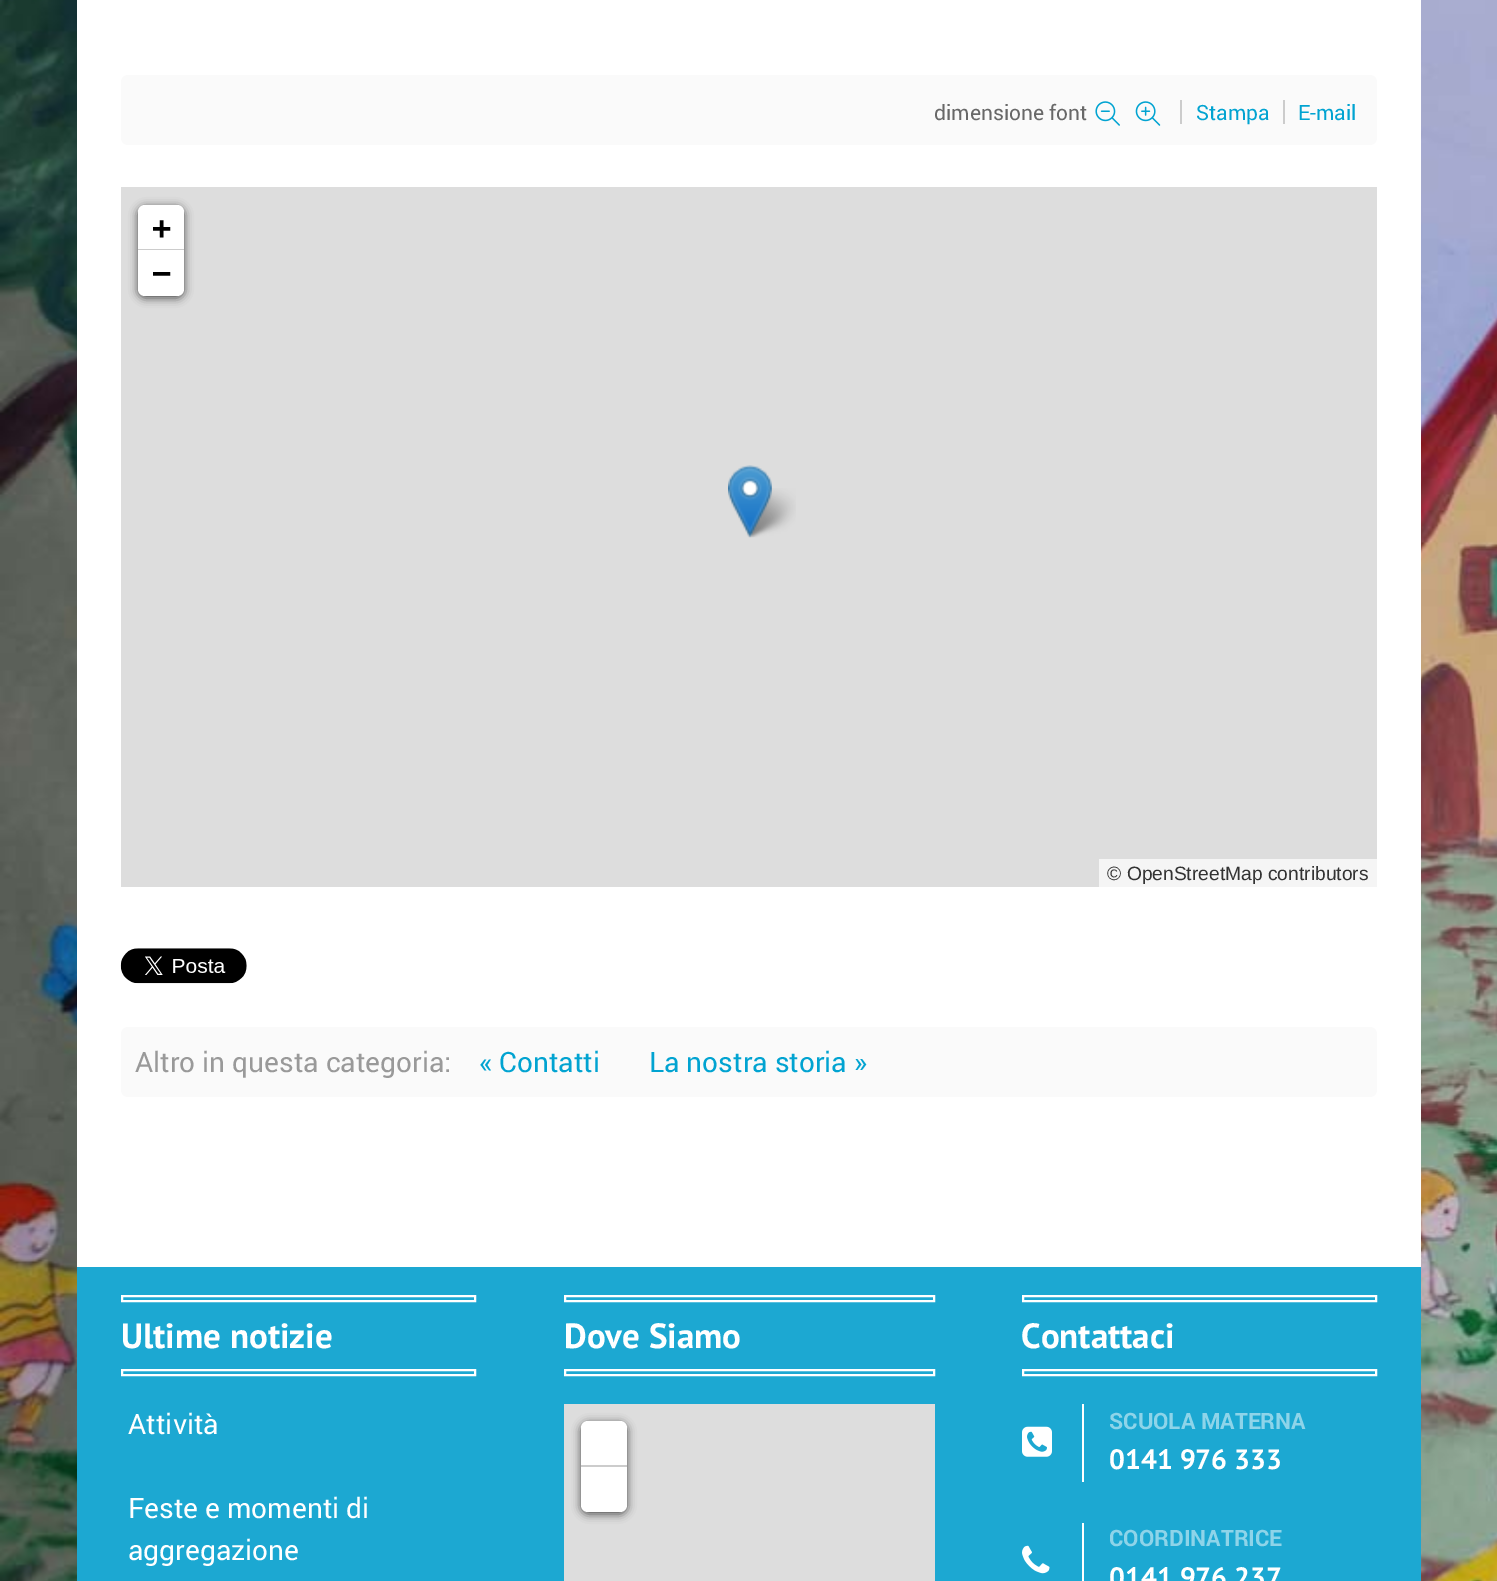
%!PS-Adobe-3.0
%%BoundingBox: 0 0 1497 1581
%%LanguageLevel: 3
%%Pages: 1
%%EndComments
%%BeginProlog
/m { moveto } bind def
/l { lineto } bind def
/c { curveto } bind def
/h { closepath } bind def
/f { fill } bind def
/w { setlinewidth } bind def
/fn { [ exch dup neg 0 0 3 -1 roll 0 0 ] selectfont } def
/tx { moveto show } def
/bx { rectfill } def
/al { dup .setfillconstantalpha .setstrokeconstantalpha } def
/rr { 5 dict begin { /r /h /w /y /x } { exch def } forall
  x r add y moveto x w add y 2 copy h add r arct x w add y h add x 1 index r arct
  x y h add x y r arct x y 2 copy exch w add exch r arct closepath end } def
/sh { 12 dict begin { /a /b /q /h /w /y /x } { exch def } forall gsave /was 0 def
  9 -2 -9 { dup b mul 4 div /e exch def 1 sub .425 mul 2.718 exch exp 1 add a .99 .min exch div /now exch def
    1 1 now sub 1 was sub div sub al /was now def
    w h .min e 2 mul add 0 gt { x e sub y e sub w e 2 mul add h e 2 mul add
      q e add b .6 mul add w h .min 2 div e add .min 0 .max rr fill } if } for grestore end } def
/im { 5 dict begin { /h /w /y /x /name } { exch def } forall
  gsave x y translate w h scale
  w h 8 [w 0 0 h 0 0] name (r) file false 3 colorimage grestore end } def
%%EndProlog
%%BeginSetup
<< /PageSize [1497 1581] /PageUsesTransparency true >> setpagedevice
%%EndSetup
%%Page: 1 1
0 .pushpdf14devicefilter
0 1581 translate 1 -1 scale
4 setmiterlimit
1 setgray
0 0 1497 1581 bx
(image0.raw) 0 0 1497 1581 im
77 0 1344 1267 bx
0.98 setgray
121 75 1256 70 7 rr f
/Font-Regular 21 fn
0.408 setgray
(dimensione font) 934 120 tx
(image1.raw) 1095 101 25 25 im
(image2.raw) 1135 101 26 25 im
0.004 0.639 0.82 setrgbcolor
(Stampa) 1196 120 tx
0.8 setgray
1180 100 2 24 bx
0.004 0.639 0.82 setrgbcolor
(E-mail) 1298 120 tx
0.8 setgray
1283 100 2 24 bx
0.867 setgray
121 187 1256 700 bx
0 setgray
138 207 46 91 7 4.5 0.65 sh
1 setgray
145 205 m 177 205 l 181 205 184 208 184 212 c 184 250 l 138 250 l 138 212 l 138 208 141 205 145 205 c h f
0.8 setgray
138 249 46 1 bx
/DejaVuSansMono-Bold 32 fn
0 setgray
(+) 152 239 tx
1 setgray
138 250 m 184 250 l 184 289 l 184 293 181 296 177 296 c 145 296 l 141 296 138 293 138 289 c h f
0 setgray
(−) 152 284 tx
0.961 setgray
1099 859 278 28 bx
/LiberationSans-Regular 19.25 fn
0.2 setgray
(© OpenStreetMap contributors) 1107 880 tx
(image4.raw) 744 488 52 50 im
(image3.raw) 728 465 44 73 im
(image5.raw) 120 948 127 36 im
0.98 setgray
121 1027 1256 70 7 rr f
/Font-Regular 28 fn
0.6 setgray
(Altro in questa categoria:) 135 1072 tx
0.004 0.639 0.82 setrgbcolor
(« Contatti) 479 1072 tx
(La nostra storia ») 649 1072 tx
0.11 0.659 0.824 setrgbcolor
77 1267 1344 314 bx
1 setgray
2 w
122 1296 353 5 rectstroke
/PTSans-Bold 35 fn
(Ultime notizie) 121 1348 tx
122 1370 353 5 rectstroke
/Font-Regular 28 fn
(Attività) 128 1434 tx
(Feste e momenti di) 128 1518 tx
(aggregazione) 128 1560 tx
565 1296 369 5 rectstroke
/PTSans-Bold 35 fn
(Dove Siamo) 564 1348 tx
565 1370 369 5 rectstroke
0.867 setgray
564 1404 371 177 bx
0 setgray
581 1423 46 91 7 4.5 0.65 sh
1 setgray
588 1421 m 620 1421 l 624 1421 627 1424 627 1428 c 627 1467 l 581 1467 l 581 1428 l 581 1424 584 1421 588 1421 c h f
0.8 setgray
581 1465 46 2 bx
1 setgray
581 1467 m 627 1467 l 627 1505 l 627 1509 624 1512 620 1512 c 588 1512 l 584 1512 581 1509 581 1505 c h f
1023 1296 353 5 rectstroke
(Contattaci) 1021 1348 tx
1023 1370 353 5 rectstroke
1082 1404 2 78 bx
(image6.raw) 1022 1426 30 31 im
/Font-Bold 22.5 fn
0.557 0.831 0.914 setrgbcolor
(SCUOLA MATERNA) 1109 1429 tx
/PTSans-Bold 28 fn
1 setgray
(0141 976 333) 1109 1469 tx
1082 1523 2 58 bx
(image7.raw) 1022 1545 28 29 im
/Font-Bold 22.5 fn
0.557 0.831 0.914 setrgbcolor
(COORDINATRICE) 1109 1546 tx
/PTSans-Bold 28 fn
1 setgray
(0141 976 237) 1109 1587 tx
.poppdf14devicefilter showpage
%%EOF
